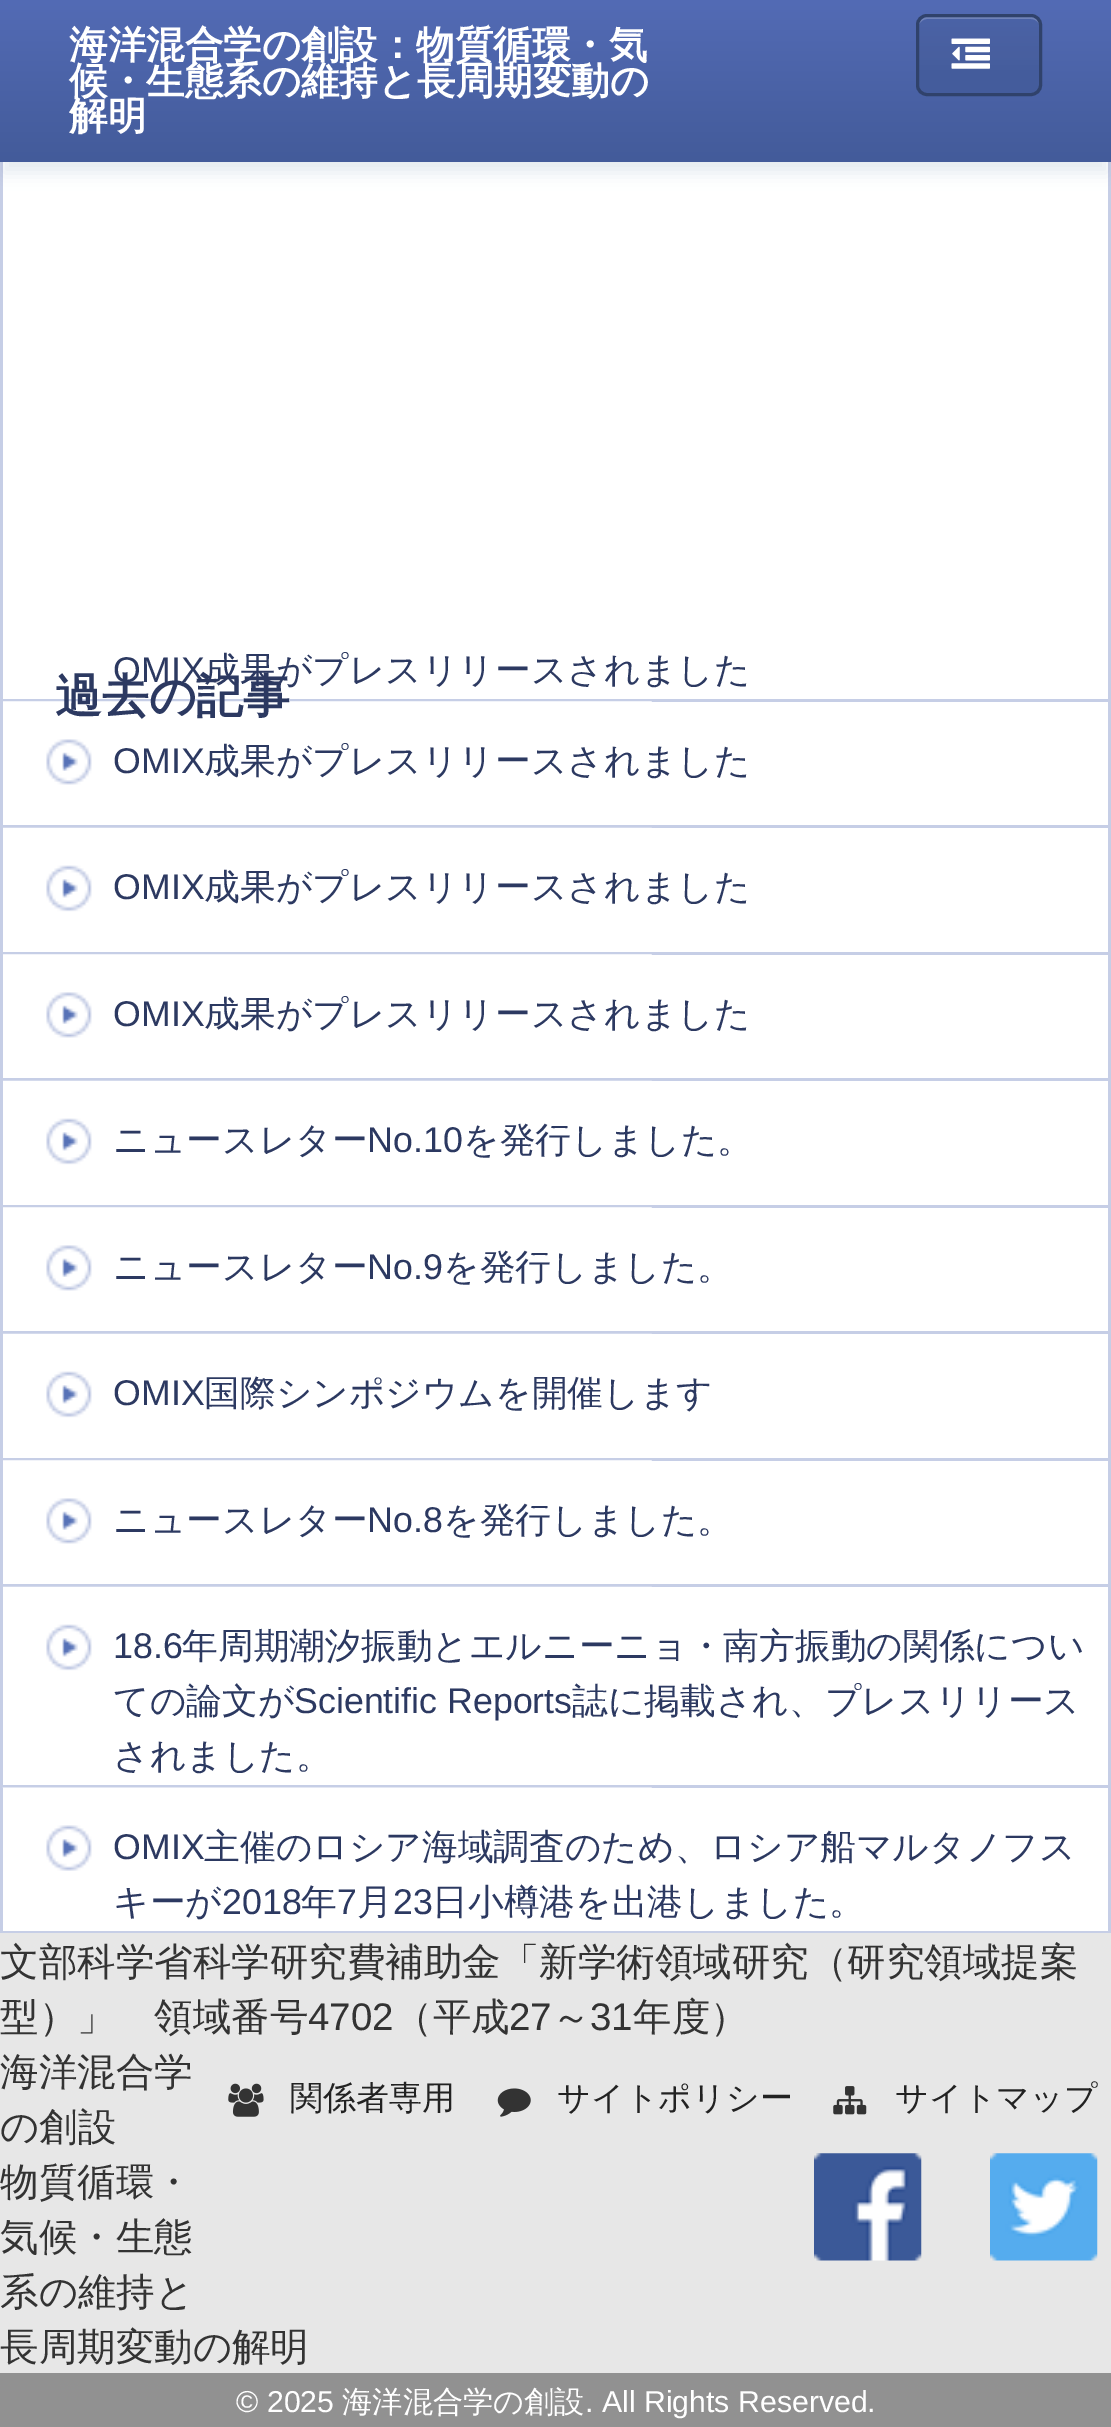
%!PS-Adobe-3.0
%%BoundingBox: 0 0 1111 2427
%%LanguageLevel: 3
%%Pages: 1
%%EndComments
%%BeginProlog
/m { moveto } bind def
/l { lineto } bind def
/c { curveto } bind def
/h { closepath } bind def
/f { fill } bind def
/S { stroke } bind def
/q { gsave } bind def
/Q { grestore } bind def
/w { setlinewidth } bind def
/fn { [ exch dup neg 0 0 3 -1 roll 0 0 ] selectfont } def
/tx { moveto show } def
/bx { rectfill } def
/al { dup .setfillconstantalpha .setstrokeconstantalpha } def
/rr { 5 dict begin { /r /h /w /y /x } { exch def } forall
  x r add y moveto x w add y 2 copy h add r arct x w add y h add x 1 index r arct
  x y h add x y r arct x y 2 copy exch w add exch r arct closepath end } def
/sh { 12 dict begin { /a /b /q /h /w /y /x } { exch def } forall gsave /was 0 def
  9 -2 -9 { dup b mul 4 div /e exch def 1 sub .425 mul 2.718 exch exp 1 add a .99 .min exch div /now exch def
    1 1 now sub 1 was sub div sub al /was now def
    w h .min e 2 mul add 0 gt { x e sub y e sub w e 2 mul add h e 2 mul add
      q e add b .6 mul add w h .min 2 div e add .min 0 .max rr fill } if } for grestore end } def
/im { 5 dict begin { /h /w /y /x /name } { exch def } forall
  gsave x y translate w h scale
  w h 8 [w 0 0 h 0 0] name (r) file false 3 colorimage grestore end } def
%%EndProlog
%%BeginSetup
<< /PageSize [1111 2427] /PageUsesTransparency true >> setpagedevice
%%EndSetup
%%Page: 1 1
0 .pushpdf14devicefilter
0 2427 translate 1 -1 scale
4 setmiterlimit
1 setgray
0 0 1111 2427 bx
0.776 0.808 0.902 setrgbcolor
1108 162 3 539 bx
0 699 1111 3 bx
0 162 3 539 bx
0.443 0.529 0.643 setrgbcolor
3 17 1105 156 0 8 0.18 sh
q 0 0 m 1111 0 l 1111 162 l 0 162 l h clip newpath
<< /ShadingType 2 /ColorSpace /DeviceRGB /Coords [556 0 556 162] /Extend [true true] /Function << /FunctionType 2 /Domain [0 1] /C0 [0.325 0.42 0.71] /C1 [0.263 0.357 0.604] /N 1 >> >> shfill Q
/WenQuanYiZenHei-Bold 38.5 fn
1 setgray
(海洋混合学の創設：物質循環・気) 69 58 tx
(候・生態系の維持と長周期変動の) 69 94 tx
(解明) 69 129 tx
q
916 14 126 82 11 rr clip newpath
q 916 17 m 1042 17 l 1042 94 l 916 94 l h clip newpath
<< /ShadingType 2 /ColorSpace /DeviceRGB /Coords [979 16 979 94] /Extend [true true] /Function << /FunctionType 3 /Domain [0 1] /Functions [<< /FunctionType 2 /Domain [0 1] /C0 [0.294 0.388 0.655] /C1 [0.282 0.373 0.624] /N 1 >> << /FunctionType 2 /Domain [0 1] /C0 [0.282 0.373 0.624] /C1 [0.267 0.361 0.612] /N 1 >> << /FunctionType 2 /Domain [0 1] /C0 [0.267 0.361 0.612] /C1 [0.267 0.361 0.612] /N 1 >>] /Bounds [0.52 0.76] /Encode [0 1 0 1 0 1] >> >> shfill Q
Q
0.435 0.51 0.725 setrgbcolor
927 19 m 1031 19 l 1036 19 1040 23 1040 28 c 1040 25 l 1040 21 1036 17 1032 17 c 927 17 l 923 17 920 20 919 24 c 921 21 924 19 927 19 c h f
0.188 0.259 0.42 setrgbcolor
3 w
917.5 15.5 123 79 9.5 rr S
(image0.raw) 951 38 39 31 im
/LiberationSans-Regular 35.75 fn
0.173 0.224 0.38 setrgbcolor
(OMIX) 113 682 tx
(image1.raw) 3 701 649 84 im
/WenQuanYiZenHei-Bold 46.75 fn
(過去の記事) 55 712 tx
/WenQuanYiZenHei-Medium 35.75 fn
(成果がプレスリリースされました) 204 682 tx
0.776 0.808 0.902 setrgbcolor
1108 701 3 253 bx
0 825 1111 3 bx
0 701 3 127 bx
/LiberationSans-Regular 35.75 fn
0.173 0.224 0.38 setrgbcolor
(OMIX) 113 773 tx
/WenQuanYiZenHei-Medium 35.75 fn
(成果がプレスリリースされました) 204 773 tx
(image2.raw) 3 827 649 85 im
0.776 0.808 0.902 setrgbcolor
0 952 1111 3 bx
0 828 3 126 bx
/LiberationSans-Regular 35.75 fn
0.173 0.224 0.38 setrgbcolor
(OMIX) 113 899 tx
/WenQuanYiZenHei-Medium 35.75 fn
(成果がプレスリリースされました) 204 899 tx
(image1.raw) 3 954 649 84 im
0.776 0.808 0.902 setrgbcolor
1108 954 3 253 bx
0 1078 1111 3 bx
0 954 3 127 bx
/LiberationSans-Regular 35.75 fn
0.173 0.224 0.38 setrgbcolor
(OMIX) 113 1026 tx
/WenQuanYiZenHei-Medium 35.75 fn
(成果がプレスリリースされました) 204 1026 tx
(image2.raw) 3 1080 649 85 im
0.776 0.808 0.902 setrgbcolor
0 1205 1111 3 bx
0 1081 3 126 bx
0.173 0.224 0.38 setrgbcolor
(ニュースレター) 113 1152 tx
/LiberationSans-Regular 35.75 fn
(No.10) 367 1152 tx
/WenQuanYiZenHei-Medium 35.75 fn
(を発行しました。) 463 1152 tx
(image3.raw) 3 1207 649 84 im
0.776 0.808 0.902 setrgbcolor
1108 1207 3 253 bx
0 1331 1111 3 bx
0 1207 3 127 bx
0.173 0.224 0.38 setrgbcolor
(ニュースレター) 113 1279 tx
/LiberationSans-Regular 35.75 fn
(No.9) 367 1279 tx
/WenQuanYiZenHei-Medium 35.75 fn
(を発行しました。) 443 1279 tx
(image2.raw) 3 1333 649 85 im
0.776 0.808 0.902 setrgbcolor
0 1458 1111 3 bx
0 1334 3 126 bx
/LiberationSans-Regular 35.75 fn
0.173 0.224 0.38 setrgbcolor
(OMIX) 113 1405 tx
/WenQuanYiZenHei-Medium 35.75 fn
(国際シンポジウムを開催します) 204 1405 tx
(image1.raw) 3 1460 649 84 im
0.776 0.808 0.902 setrgbcolor
1108 1460 3 473 bx
0 1584 1111 3 bx
0 1460 3 127 bx
0.173 0.224 0.38 setrgbcolor
(ニュースレター) 113 1532 tx
/LiberationSans-Regular 35.75 fn
(No.8) 367 1532 tx
/WenQuanYiZenHei-Medium 35.75 fn
(を発行しました。) 443 1532 tx
(image2.raw) 3 1586 649 85 im
0.776 0.808 0.902 setrgbcolor
0 1785 1111 3 bx
0 1587 3 201 bx
/LiberationSans-Regular 35.75 fn
0.173 0.224 0.38 setrgbcolor
(18.6) 113 1658 tx
/WenQuanYiZenHei-Medium 35.75 fn
(年周期潮汐振動とエルニーニョ・南方振動の関係につい) 182 1658 tx
(ての論文が) 113 1713 tx
/LiberationSans-Regular 35.75 fn
(Scientific Reports) 294 1713 tx
/WenQuanYiZenHei-Medium 35.75 fn
(誌に掲載され、プレスリリース) 572 1713 tx
(されました。) 113 1768 tx
(image4.raw) 2 1787 650 84 im
0.776 0.808 0.902 setrgbcolor
0 1931 1111 2 bx
0 1788 3 145 bx
/LiberationSans-Regular 35.75 fn
0.173 0.224 0.38 setrgbcolor
(OMIX) 113 1859 tx
/WenQuanYiZenHei-Medium 35.75 fn
(主催のロシア海域調査のため、ロシア船マルタノフス) 204 1859 tx
(キーが) 113 1914 tx
/LiberationSans-Regular 35.75 fn
(2018) 222 1914 tx
/WenQuanYiZenHei-Medium 35.75 fn
(年) 301 1914 tx
/LiberationSans-Regular 35.75 fn
(7) 337 1914 tx
/WenQuanYiZenHei-Medium 35.75 fn
(月) 357 1914 tx
/LiberationSans-Regular 35.75 fn
(23) 393 1914 tx
/WenQuanYiZenHei-Medium 35.75 fn
(日小樽港を出港しました。) 432 1914 tx
0.906 setgray
0 1933 1111 440 bx
/WenQuanYiZenHei-Medium 38.5 fn
0.2 setgray
(文部科学省科学研究費補助金「新学術領域研究（研究領域提案) 0 1975 tx
(型）」　領域番号) 0 2030 tx
/LiberationSans-Regular 38.5 fn
(4702) 308 2030 tx
/WenQuanYiZenHei-Medium 38.5 fn
(（平成) 394 2030 tx
/LiberationSans-Regular 38.5 fn
(27) 509 2030 tx
/WenQuanYiZenHei-Medium 38.5 fn
(～) 552 2030 tx
/LiberationSans-Regular 38.5 fn
(31) 590 2030 tx
/WenQuanYiZenHei-Medium 38.5 fn
(年度）) 633 2030 tx
(海洋混合学) 0 2085 tx
(の創設) 0 2140 tx
(物質循環・) 0 2195 tx
(気候・生態) 0 2250 tx
(系の維持と) 0 2305 tx
(長周期変動の解明) 0 2360 tx
(image5.raw) 228 2083 36 34 im
/WenQuanYiZenHei-Medium 33 fn
0.133 setgray
(関係者専用) 290 2109 tx
(image6.raw) 497 2088 34 29 im
(サイトポリシー) 557 2109 tx
(image7.raw) 833 2086 34 29 im
(サイトマップ) 895 2109 tx
(image8.raw) 814 2153 108 108 im
(image9.raw) 990 2153 108 108 im
0.569 setgray
0 2373 1111 54 bx
/LiberationSans-Regular 30.25 fn
1 setgray
(© 2025) 236 2412 tx
/WenQuanYiZenHei-Medium 30.25 fn
(海洋混合学の創設) 342 2412 tx
/LiberationSans-Regular 30.25 fn
(. All Rights Reserved.) 585 2412 tx
.poppdf14devicefilter showpage
%%EOF
